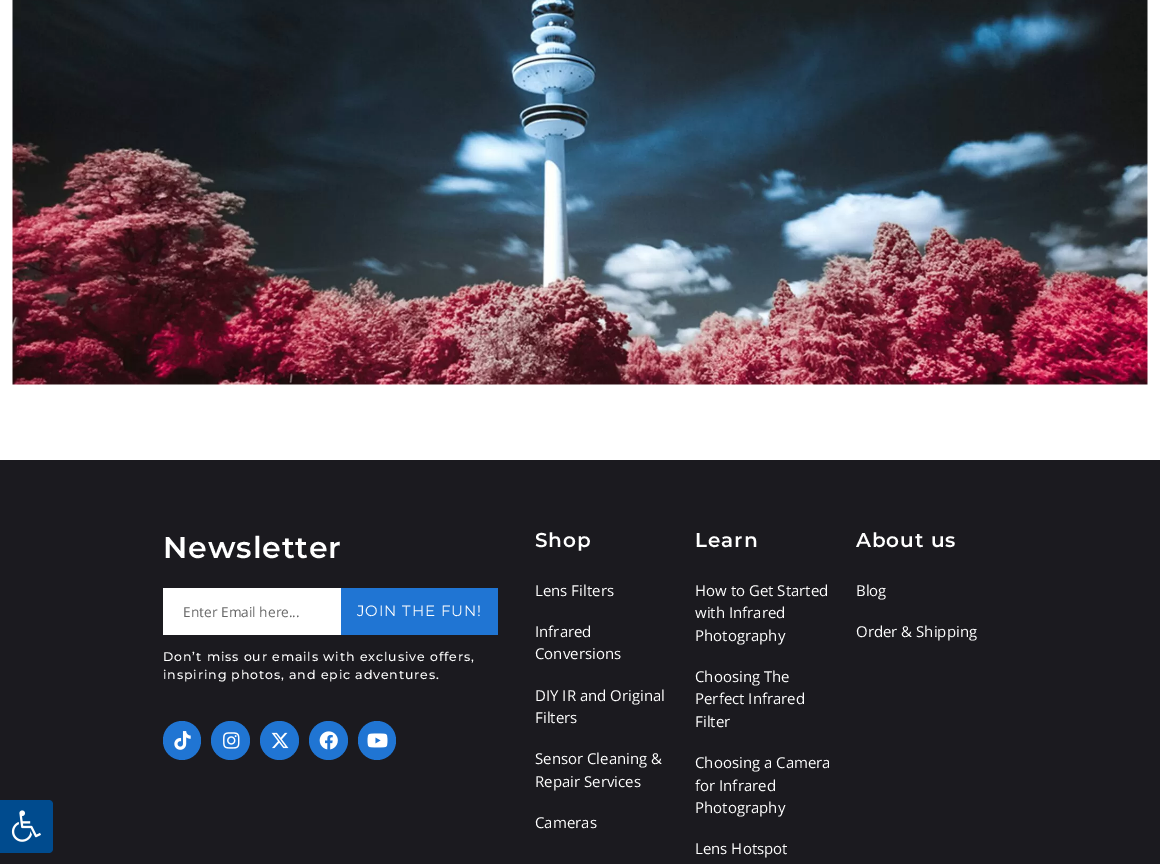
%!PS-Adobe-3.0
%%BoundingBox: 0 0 1160 864
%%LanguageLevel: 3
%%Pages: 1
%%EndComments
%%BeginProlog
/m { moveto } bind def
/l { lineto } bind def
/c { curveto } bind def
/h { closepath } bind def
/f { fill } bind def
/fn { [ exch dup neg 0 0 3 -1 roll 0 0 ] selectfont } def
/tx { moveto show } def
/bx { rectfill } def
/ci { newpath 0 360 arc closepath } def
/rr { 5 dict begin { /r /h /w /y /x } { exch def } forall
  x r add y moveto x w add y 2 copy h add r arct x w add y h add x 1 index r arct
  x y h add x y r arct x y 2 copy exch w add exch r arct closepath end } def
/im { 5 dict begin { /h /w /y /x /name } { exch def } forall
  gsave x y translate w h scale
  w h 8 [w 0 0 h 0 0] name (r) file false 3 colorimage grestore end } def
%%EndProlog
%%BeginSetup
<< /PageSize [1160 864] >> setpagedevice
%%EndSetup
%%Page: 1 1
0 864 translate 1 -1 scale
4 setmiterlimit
1 setgray
0 0 1160 864 bx
(image0.raw) 12 0 1136 385 im
0.106 0.102 0.122 setrgbcolor
0 460 1160 404 bx
0 0.294 0.557 setrgbcolor
0 800 m 49 800 l 51 800 53 802 53 804 c 53 849 l 53 851 51 853 49 853 c 0 853 l h f
(image1.raw) 11 810 30 32 im
/Montserrat-SemiBold 30 fn
1 setgray
163 558 m 0.9 0 (Newsletter) ashow
163 588 178 47 bx
/OpenSans-Regular 13.75 fn
0.4 setgray
(Enter Email here...) 183 617 tx
0.125 0.459 0.827 setrgbcolor
341 588 157 47 bx
/Montserrat-Regular 15 fn
1 setgray
357 616 m 0.9 0 (JOIN THE FUN!) ashow
/Montserrat-Medium 12.5 fn
163 661 m 0.9 0 (Don’t miss our emails with exclusive offers,) ashow
163 679 m 0.9 0 (inspiring photos, and epic adventures.) ashow
0.125 0.459 0.827 setrgbcolor
163 721 38 39 19 rr f
(image2.raw) 174 731 17 19 im
230.5 740.5 19.5 ci f
(image3.raw) 223 732 17 17 im
279.5 740.5 19.5 ci f
(image4.raw) 271 732 18 17 im
328.5 740.5 19.5 ci f
(image5.raw) 319 731 19 19 im
358 721 38 39 19 rr f
(image6.raw) 367 733 21 15 im
/Montserrat-SemiBold 20 fn
1 setgray
535 547 m 0.9 0 (Shop) ashow
/OpenSans-Regular 15 fn
(Lens Filters) 535 596 tx
(Infrared) 535 637 tx
(Conversions) 535 659 tx
(DIY IR and Original) 535 701 tx
(Filters) 535 723 tx
(Sensor Cleaning &) 535 764 tx
(Repair Services) 535 787 tx
(Cameras) 535 828 tx
/Montserrat-SemiBold 20 fn
695 547 m 0.9 0 (Learn) ashow
/OpenSans-Regular 15 fn
(How to Get Started) 695 596 tx
(with Infrared) 695 618 tx
(Photography) 695 641 tx
(Choosing The) 695 682 tx
(Perfect Infrared) 695 704 tx
(Filter) 695 727 tx
(Choosing a Camera) 695 768 tx
(for Infrared) 695 791 tx
(Photography) 695 813 tx
(Lens Hotspot) 695 854 tx
/Montserrat-SemiBold 20 fn
856 547 m 0.9 0 (About us) ashow
/OpenSans-Regular 15 fn
(Blog) 856 596 tx
(Order & Shipping) 856 637 tx
showpage
%%EOF
